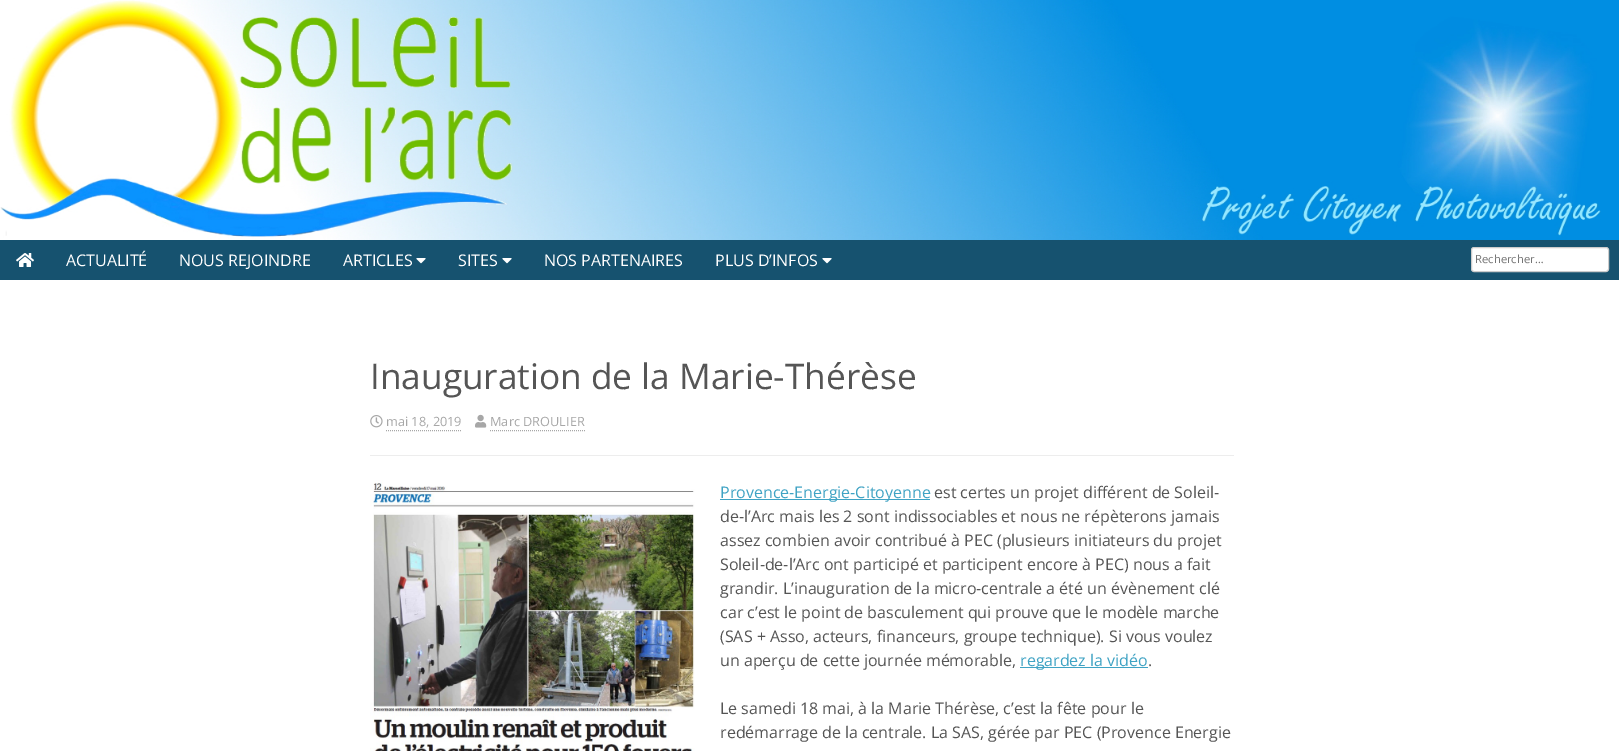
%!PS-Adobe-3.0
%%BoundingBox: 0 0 1619 751
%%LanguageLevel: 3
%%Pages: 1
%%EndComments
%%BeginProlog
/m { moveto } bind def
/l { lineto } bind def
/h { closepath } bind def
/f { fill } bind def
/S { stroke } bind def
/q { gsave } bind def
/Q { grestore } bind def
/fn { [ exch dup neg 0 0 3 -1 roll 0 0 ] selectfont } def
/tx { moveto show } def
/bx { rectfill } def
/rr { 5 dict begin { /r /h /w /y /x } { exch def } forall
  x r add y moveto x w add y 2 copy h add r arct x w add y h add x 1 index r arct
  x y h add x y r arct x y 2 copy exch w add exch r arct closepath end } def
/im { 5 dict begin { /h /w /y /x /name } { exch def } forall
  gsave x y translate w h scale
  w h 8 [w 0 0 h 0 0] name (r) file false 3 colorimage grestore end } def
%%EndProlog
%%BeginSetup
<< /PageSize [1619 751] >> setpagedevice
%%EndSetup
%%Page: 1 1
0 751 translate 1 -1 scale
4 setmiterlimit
1 setgray
0 0 1619 751 bx
q 1601 0 m 1619 0 l 1619 240 l 1601 240 l h clip newpath
<< /ShadingType 2 /ColorSpace /DeviceRGB /Coords [0 140 1619 140] /Extend [true true] /Function << /FunctionType 3 /Domain [0 1] /Functions [<< /FunctionType 2 /Domain [0 1] /C0 [1 1 1] /C1 [1 1 1] /N 1 >> << /FunctionType 2 /Domain [0 1] /C0 [1 1 1] /C1 [0 0.557 0.886] /N 1 >> << /FunctionType 2 /Domain [0 1] /C0 [0 0.557 0.886] /C1 [0 0.557 0.886] /N 1 >>] /Bounds [0.22 0.78] /Encode [0 1 0 1 0 1] >> >> shfill Q
(image0.raw) 0 0 1601 240 im
0.086 0.322 0.435 setrgbcolor
0 240 1619 40 bx
(image1.raw) 16 253 18 14 im
/OpenSans-Regular 16 fn
1 setgray
(ACTUALITÉ) 66 266 tx
(NOUS REJOINDRE) 179 266 tx
(ARTICLES) 343 266 tx
(image2.raw) 416 258 10 6 im
(SITES) 458 266 tx
(image2.raw) 502 258 10 6 im
(NOS PARTENAIRES) 544 266 tx
(PLUS D’INFOS) 715 266 tx
(image2.raw) 822 258 10 6 im
1471.5 247.5 137 24 2.5 rr q f Q
0.8 setgray
S
/OpenSans-Regular 11.25 fn
0.459 setgray
(Rechercher…) 1475 263 tx
0.929 setgray
370 455 864 1 bx
/OpenSans-Regular 35.25 fn
0.333 setgray
(Inauguration de la Marie-Thérèse) 370 389 tx
(image3.raw) 370 415 13 13 im
/OpenSans-Regular 12.75 fn
0.655 setgray
(mai 18, 2019) 386 426 tx
[1 1] 0 setdash
386 430.5 m 462 430.5 l S
(image4.raw) 475 414 12 14 im
(Marc DROULIER) 490 426 tx
490 430.5 m 585 430.5 l S
(image5.raw) 370 480 325 271 im
0.247 0.639 0.769 setrgbcolor
720 499 210 1 bx
/OpenSans-Regular 16 fn
(Provence-Energie-Citoyenne) 720 498 tx
0.333 setgray
(est certes un projet différent de Soleil-) 934 498 tx
(de-l’Arc mais les 2 sont indissociables et nous ne répèterons jamais) 720 522 tx
(assez combien avoir contribué à PEC \(plusieurs initiateurs du projet) 720 546 tx
(Soleil-de-l’Arc ont participé et participent encore à PEC\) nous a fait) 720 570 tx
(grandir. L’inauguration de la micro-centrale a été un évènement clé) 720 594 tx
(car c’est le point de basculement qui prouve que le modèle marche) 720 618 tx
(\(SAS + Asso, acteurs, financeurs, groupe technique\). Si vous voulez) 720 642 tx
(un aperçu de cette journée mémorable,) 720 666 tx
0.247 0.639 0.769 setrgbcolor
1020 667 128 1 bx
(regardez la vidéo) 1020 666 tx
0.333 setgray
(.) 1148 666 tx
(Le samedi 18 mai, à la Marie Thérèse, c’est la fête pour le) 720 714 tx
(redémarrage de la centrale. La SAS, gérée par PEC \(Provence Energie) 720 738 tx
showpage
%%EOF
